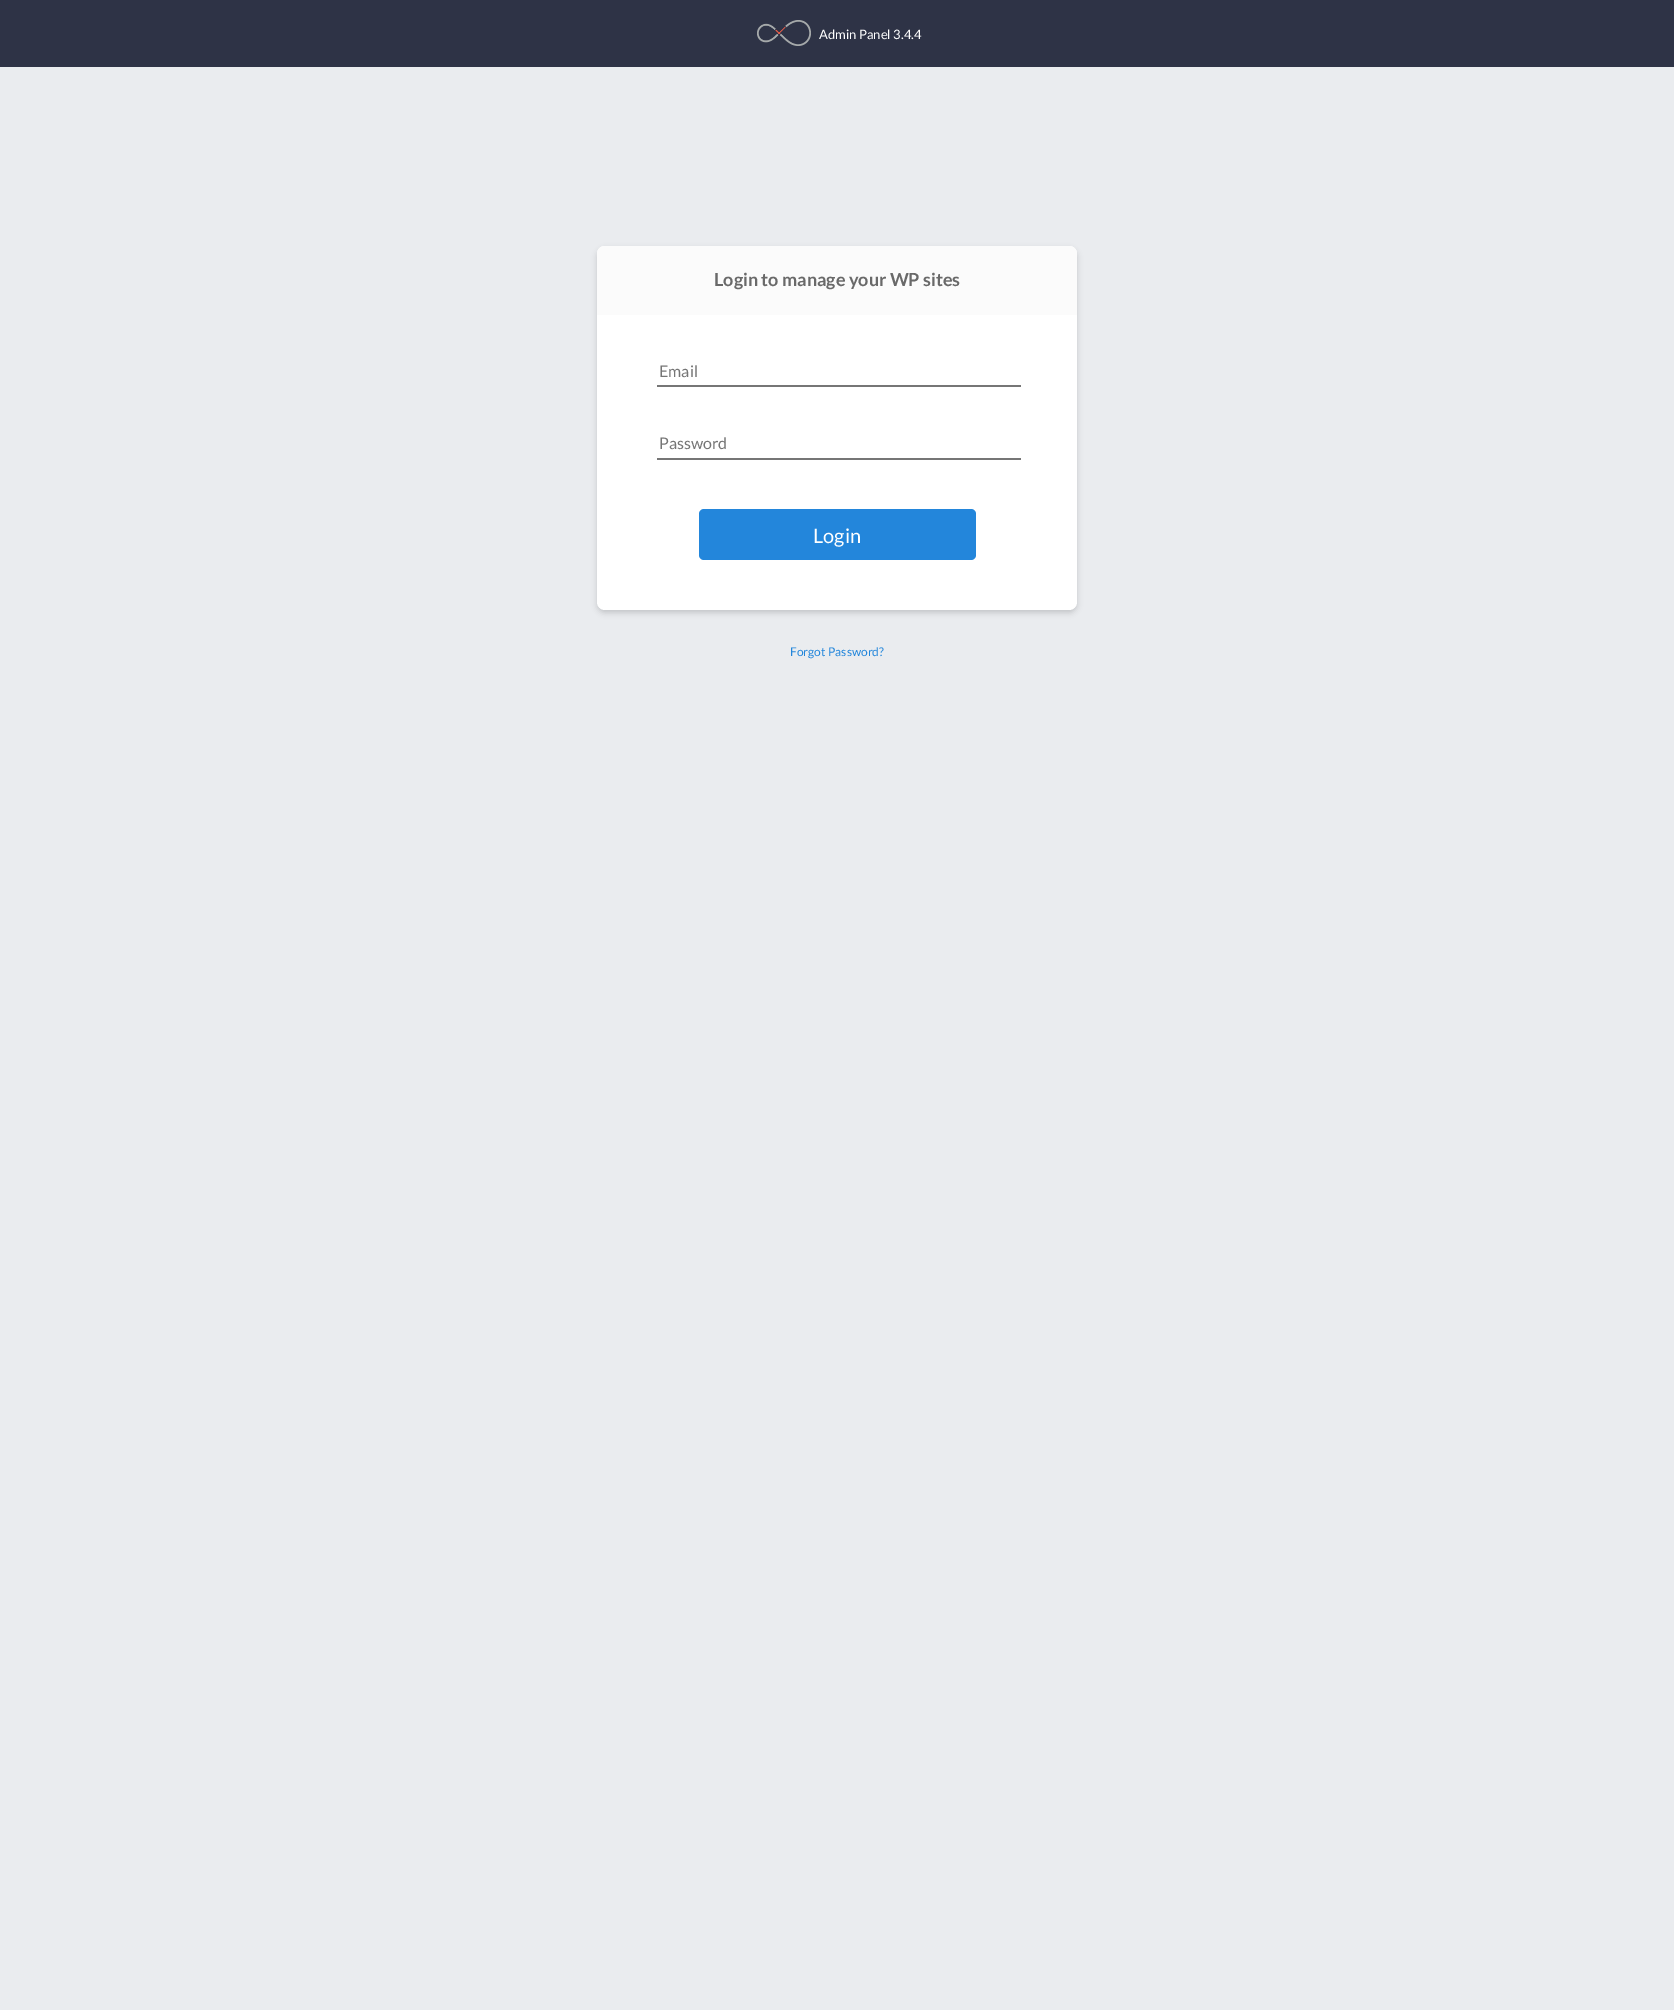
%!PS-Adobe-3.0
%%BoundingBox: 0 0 1674 2010
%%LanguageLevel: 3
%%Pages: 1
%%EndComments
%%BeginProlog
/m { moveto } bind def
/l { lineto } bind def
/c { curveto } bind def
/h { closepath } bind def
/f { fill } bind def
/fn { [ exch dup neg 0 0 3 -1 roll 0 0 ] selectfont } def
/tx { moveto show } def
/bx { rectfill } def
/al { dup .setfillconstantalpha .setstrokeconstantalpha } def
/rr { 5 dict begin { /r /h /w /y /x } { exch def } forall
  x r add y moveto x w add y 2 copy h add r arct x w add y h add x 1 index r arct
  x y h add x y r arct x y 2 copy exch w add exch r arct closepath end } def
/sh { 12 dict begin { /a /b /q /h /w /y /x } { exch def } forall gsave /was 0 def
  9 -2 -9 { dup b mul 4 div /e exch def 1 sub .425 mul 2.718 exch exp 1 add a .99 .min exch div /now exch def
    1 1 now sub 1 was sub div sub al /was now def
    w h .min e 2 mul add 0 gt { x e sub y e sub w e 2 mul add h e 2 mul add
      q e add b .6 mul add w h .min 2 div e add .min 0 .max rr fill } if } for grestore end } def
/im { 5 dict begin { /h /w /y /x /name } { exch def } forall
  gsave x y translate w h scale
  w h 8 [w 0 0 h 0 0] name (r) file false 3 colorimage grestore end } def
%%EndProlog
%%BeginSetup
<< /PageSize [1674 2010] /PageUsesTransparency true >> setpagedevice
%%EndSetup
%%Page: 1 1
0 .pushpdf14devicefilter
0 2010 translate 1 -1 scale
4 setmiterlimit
0.918 0.925 0.937 setrgbcolor
0 0 1674 2010 bx
0.18 0.2 0.275 setrgbcolor
0 0 1674 67 bx
(image0.raw) 757 20 54 26 im
/Lato-Regular 13 fn
1 setgray
(Admin Panel 3.4.4) 819 39 tx
0 setgray
597 249 480 364 8 3 0.16 sh
1 setgray
597 246 480 364 8 rr f
0.984 setgray
605 246 m 1069 246 l 1073.5 246 1077 249.5 1077 254 c 1077 315 l 597 315 l 597 254 l 597 249.5 600.5 246 605 246 c h f
/Lato-Bold 18 fn
0.412 setgray
(Login to manage your WP sites) 714 286 tx
0.463 setgray
657 385 364 2 bx
/Lato-Regular 16 fn
0.459 setgray
(Email) 659 377 tx
0.463 setgray
657 458 364 2 bx
0.459 setgray
(Password) 659 449 tx
0.137 0.525 0.859 setrgbcolor
699 509 277 51 5 rr f
/Lato-Regular 20 fn
1 setgray
(Login) 813 543 tx
/Lato-Regular 12 fn
0.137 0.525 0.859 setrgbcolor
(Forgot Password?) 790 656 tx
.poppdf14devicefilter showpage
%%EOF
